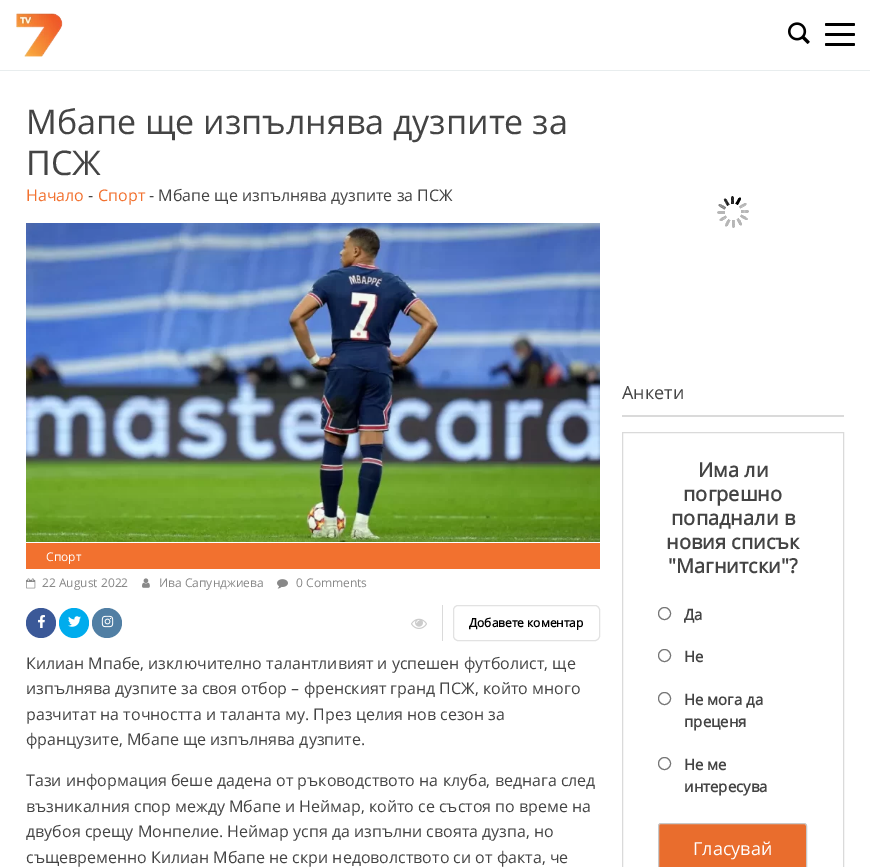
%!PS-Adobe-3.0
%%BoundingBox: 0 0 870 867
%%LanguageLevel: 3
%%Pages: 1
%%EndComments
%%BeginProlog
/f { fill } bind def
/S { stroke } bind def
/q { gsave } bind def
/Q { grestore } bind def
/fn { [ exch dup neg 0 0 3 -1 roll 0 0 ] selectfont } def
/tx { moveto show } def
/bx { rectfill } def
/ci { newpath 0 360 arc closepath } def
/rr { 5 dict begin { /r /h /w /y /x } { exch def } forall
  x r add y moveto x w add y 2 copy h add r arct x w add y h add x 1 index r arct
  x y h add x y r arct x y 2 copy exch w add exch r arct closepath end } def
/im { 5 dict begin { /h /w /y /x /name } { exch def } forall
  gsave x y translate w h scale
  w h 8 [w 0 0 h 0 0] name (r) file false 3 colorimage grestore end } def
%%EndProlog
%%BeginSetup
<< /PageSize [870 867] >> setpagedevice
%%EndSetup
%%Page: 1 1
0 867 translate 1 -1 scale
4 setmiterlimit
1 setgray
0 0 870 867 bx
0.91 0.929 0.933 setrgbcolor
0 70 870 1 bx
(image0.raw) 16 13 47 44 im
(image1.raw) 788 22 22 22 im
0 setgray
825 33 30 3 1.5 rr f
825 23 30 3 1.5 rr f
825 43 30 3 1.5 rr f
/OpenSans-Regular 34 fn
0.267 setgray
(Мбапе ще изпълнява дузпите за) 26 134 tx
(ПСЖ) 26 175 tx
/OpenSans-Regular 16 fn
0.949 0.443 0.184 setrgbcolor
(Начало) 26 201 tx
0.267 setgray
(-) 88 201 tx
0.949 0.443 0.184 setrgbcolor
(Спорт) 98 201 tx
0.267 setgray
(- Мбапе ще изпълнява дузпите за ПСЖ) 149 201 tx
(image2.raw) 26 223 574 319 im
0.949 0.443 0.184 setrgbcolor
26 543 574 26 bx
/OpenSans-Regular 12 fn
1 setgray
(Спорт) 46 561 tx
(image3.raw) 26 578 10 11 im
0.533 setgray
(22 August 2022) 42 587 tx
(image4.raw) 142 578 8 10 im
(Ива Cапунджиева) 159 587 tx
(image5.raw) 277 579 11 10 im
(0 Comments) 296 587 tx
0.231 0.349 0.596 setrgbcolor
41 623 15 ci f
(image6.raw) 38 615 7 13 im
0 0.675 0.929 setrgbcolor
74 623 15 ci f
(image7.raw) 68 616 13 11 im
0.318 0.498 0.643 setrgbcolor
107 623 15 ci f
(image8.raw) 101 615 13 13 im
0.855 setgray
442 605 1 36 bx
(image9.raw) 411 618 16 11 im
0.886 setgray
453.5 605.5 146 35 4.5 rr S
/OpenSans-Bold 12 fn
0 setgray
(Добавете коментар) 469 627 tx
/OpenSans-Regular 16 fn
0.267 setgray
(Килиан Мпабе, изключително талантливият и успешен футболист, ще) 26 669 tx
(изпълнява дузпите за своя отбор – френският гранд ПСЖ, който много) 26 694 tx
(разчитат на точността и таланта му. През целия нов сезон за) 26 720 tx
(французите, Мбапе ще изпълнява дузпите.) 26 745 tx
(Тази информация беше дадена от ръководството на клуба, веднага след) 26 786 tx
(възникалния спор между Мбапе и Неймар, който се състоя по време на) 26 812 tx
(двубоя срещу Монпелие. Неймар успя да изпълни своята дузпа, но) 26 837 tx
(същевременно Килиан Мбапе не скри недоволството си от факта, че) 26 863 tx
(image10.raw) 717 196 32 32 im
0.855 setgray
622 415 222 2 bx
/OpenSans-Regular 18 fn
0.267 setgray
(Анкети) 622 399 tx
0.855 setgray
622.5 432.5 221 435 rectstroke
/OpenSans-Bold 20 fn
0.267 setgray
(Има ли) 698 477 tx
(погрешно) 683 501 tx
(попаднали в) 671 525 tx
(новия списък) 666 549 tx
("Магнитски"?) 668 573 tx
0.463 setgray
664.5 613.5 6 ci S
/OpenSans-Bold 15 fn
0.267 setgray
(Да) 684 620 tx
0.463 setgray
664.5 655.5 6 ci S
0.267 setgray
(Не) 684 662 tx
0.463 setgray
664.5 698.5 6 ci S
0.267 setgray
(Не мога да) 684 705 tx
(преценя) 684 727 tx
0.463 setgray
664.5 763.5 6 ci S
0.267 setgray
(Не ме) 684 770 tx
(интересува) 684 792 tx
0.914 0.427 0.176 setrgbcolor
658.5 823.5 148 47 2.5 rr q f Q
0.784 setgray
S
/OpenSans-Regular 18 fn
1 setgray
(Гласувай) 693 855 tx
showpage
%%EOF
